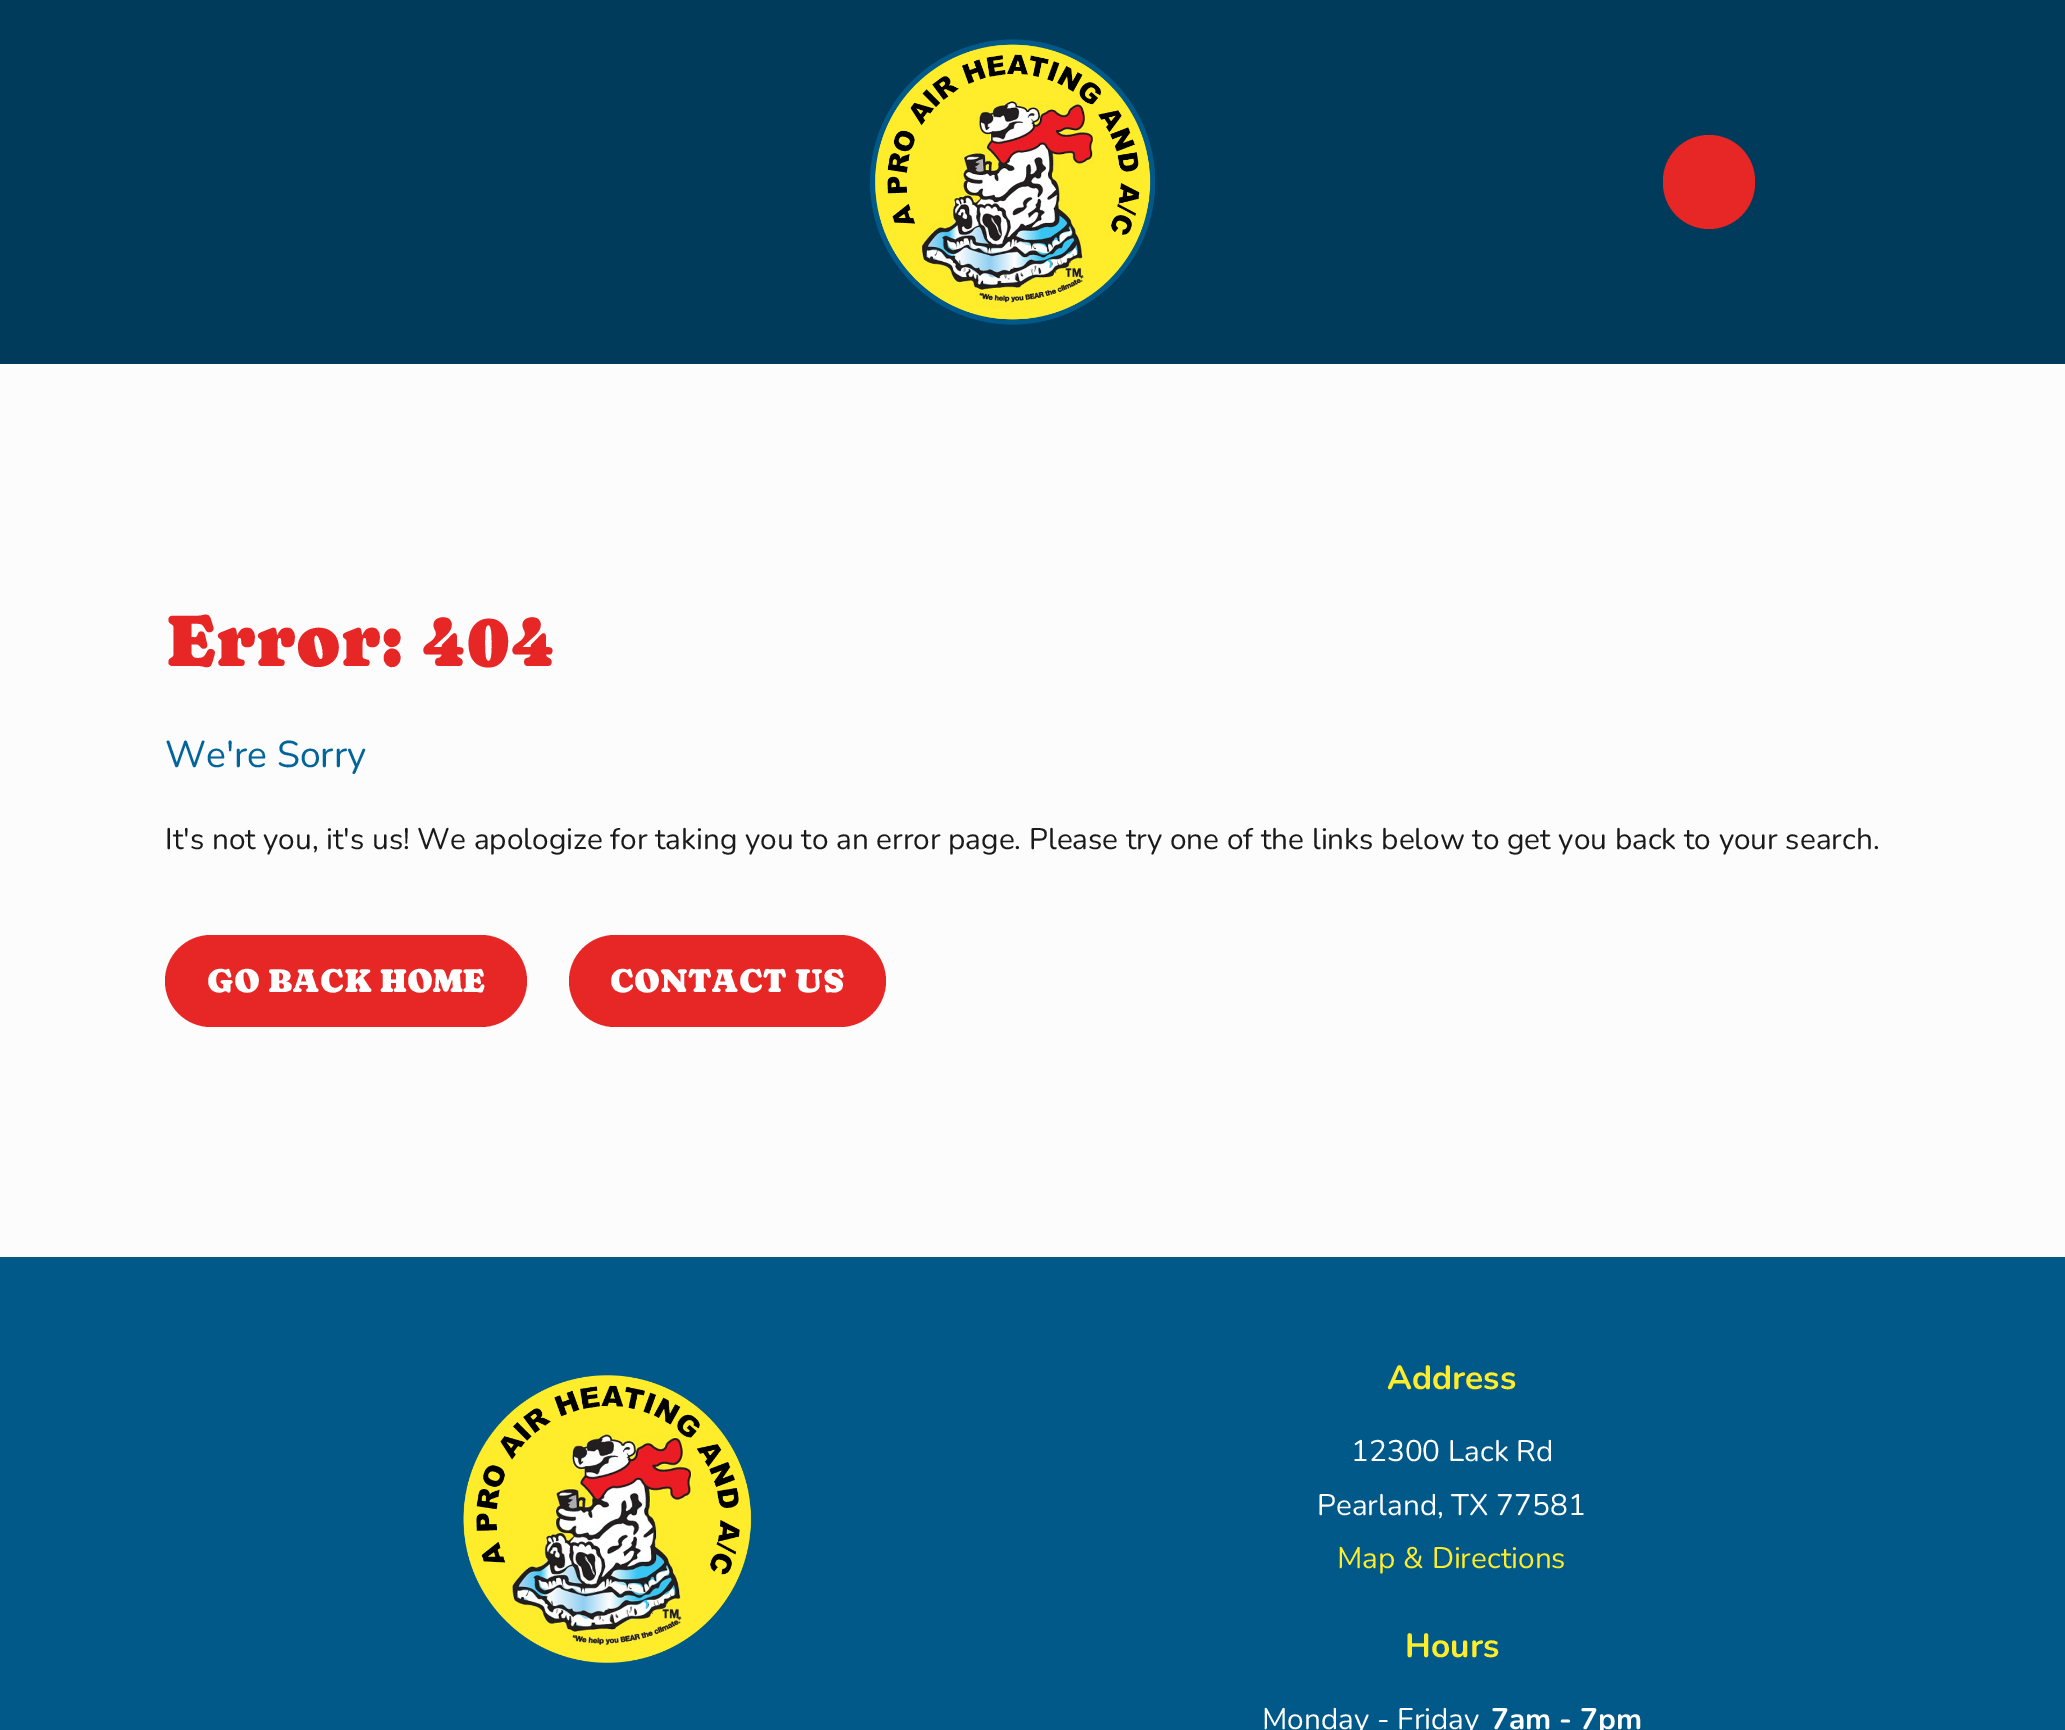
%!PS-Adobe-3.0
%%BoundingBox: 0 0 2065 1730
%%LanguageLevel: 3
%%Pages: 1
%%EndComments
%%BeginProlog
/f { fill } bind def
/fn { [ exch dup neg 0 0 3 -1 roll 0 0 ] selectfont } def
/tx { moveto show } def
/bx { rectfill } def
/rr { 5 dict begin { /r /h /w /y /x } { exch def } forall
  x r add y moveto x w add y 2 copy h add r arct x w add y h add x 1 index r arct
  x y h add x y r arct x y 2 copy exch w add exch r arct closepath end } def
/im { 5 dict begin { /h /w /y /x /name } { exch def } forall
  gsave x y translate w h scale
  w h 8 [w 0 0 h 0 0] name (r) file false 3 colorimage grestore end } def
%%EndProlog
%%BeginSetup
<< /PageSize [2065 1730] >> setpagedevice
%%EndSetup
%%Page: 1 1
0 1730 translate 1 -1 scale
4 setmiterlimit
0.988 setgray
0 0 2065 1730 bx
0 0.231 0.357 setrgbcolor
0 0 2065 364 bx
(image0.raw) 870 39 285 286 im
0.906 0.149 0.149 setrgbcolor
1663 135 92 94 46 rr f
/Caprasimo-Regular 74.5 fn
(Error: 404) 165 666 tx
/Nunito-Regular 37.25 fn
0.004 0.396 0.608 setrgbcolor
(We're Sorry) 165 767 tx
/Nunito-Regular 29.75 fn
0.102 setgray
(It's not you, it's us! We apologize for taking you to an error page. Please try one of the links below to get you back to your search.) 165 849 tx
0.906 0.149 0.149 setrgbcolor
165 935 362 92 46 rr f
/Caprasimo-Regular 33.5 fn
1 setgray
(GO BACK HOME) 207 992 tx
0.906 0.149 0.149 setrgbcolor
569 935 317 92 46 rr f
1 setgray
(CONTACT US) 610 992 tx
0 0.349 0.537 setrgbcolor
0 1257 2065 473 bx
(image1.raw) 463 1375 289 288 im
/Nunito-Bold 33.5 fn
1 0.929 0.169 setrgbcolor
(Address) 1387 1389 tx
/Nunito-Regular 29.75 fn
1 setgray
(12300 Lack Rd) 1351 1461 tx
(Pearland, TX 77581) 1317 1515 tx
1 0.929 0.169 setrgbcolor
(Map & Directions) 1337 1568 tx
/Nunito-Bold 33.5 fn
(Hours) 1405 1657 tx
/Nunito-Regular 29.75 fn
1 setgray
(Monday - Friday) 1262 1729 tx
/Nunito-Bold 29.75 fn
(7am - 7pm) 1491 1729 tx
showpage
%%EOF
